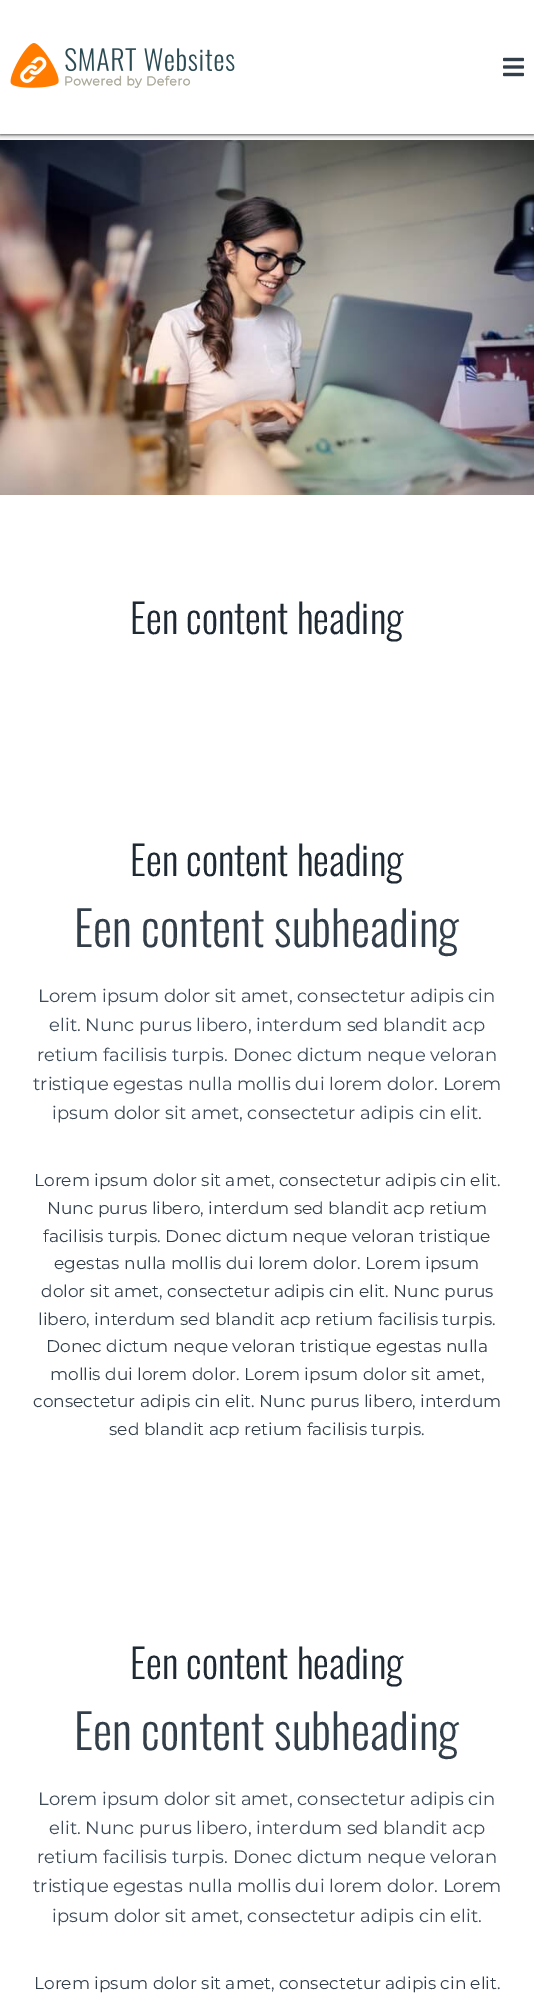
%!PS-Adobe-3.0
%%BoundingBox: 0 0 534 1994
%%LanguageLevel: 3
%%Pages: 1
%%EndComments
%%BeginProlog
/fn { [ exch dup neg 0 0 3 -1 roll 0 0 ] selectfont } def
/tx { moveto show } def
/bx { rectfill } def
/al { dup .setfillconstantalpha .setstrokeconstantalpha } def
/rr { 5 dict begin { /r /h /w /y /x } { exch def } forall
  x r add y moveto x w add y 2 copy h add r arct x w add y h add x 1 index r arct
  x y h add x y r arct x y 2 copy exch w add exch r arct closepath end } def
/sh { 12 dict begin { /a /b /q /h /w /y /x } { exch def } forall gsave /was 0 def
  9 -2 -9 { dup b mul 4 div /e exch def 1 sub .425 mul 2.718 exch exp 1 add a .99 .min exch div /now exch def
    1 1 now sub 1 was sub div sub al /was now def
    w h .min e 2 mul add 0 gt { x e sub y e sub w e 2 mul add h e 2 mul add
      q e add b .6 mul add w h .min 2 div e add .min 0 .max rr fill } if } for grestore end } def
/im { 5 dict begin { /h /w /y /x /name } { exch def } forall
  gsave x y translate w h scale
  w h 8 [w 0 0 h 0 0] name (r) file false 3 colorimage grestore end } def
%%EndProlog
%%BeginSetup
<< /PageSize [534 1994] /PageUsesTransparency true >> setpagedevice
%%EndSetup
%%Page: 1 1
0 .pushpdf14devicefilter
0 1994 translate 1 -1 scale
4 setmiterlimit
1 setgray
0 0 534 1994 bx
(image2.raw) 0 140 534 355 im
0 setgray
0 0 534 134 0 2.5 1 sh
1 setgray
0 0 534 134 bx
(image0.raw) 10 43 225 45 im
(image1.raw) 503 57 21 20 im
/Oswald-Light 40 fn
0.122 0.161 0.2 setrgbcolor
(Een content heading) 130 634 tx
(Een content heading) 130 876 tx
/Oswald-Light 48 fn
0.196 0.247 0.294 setrgbcolor
(Een content subheading) 74 947 tx
/Montserrat-Regular 18 fn
0.243 0.298 0.349 setrgbcolor
(Lorem ipsum dolor sit amet, consectetur adipis cin) 38 1002 tx
(elit. Nunc purus libero, interdum sed blandit acp) 49 1031 tx
(retium facilisis turpis. Donec dictum neque veloran) 37 1061 tx
(tristique egestas nulla mollis dui lorem dolor. Lorem) 33 1090 tx
(ipsum dolor sit amet, consectetur adipis cin elit.) 52 1119 tx
/Montserrat-Regular 17 fn
0.196 0.247 0.294 setrgbcolor
(Lorem ipsum dolor sit amet, consectetur adipis cin elit.) 34 1186 tx
(Nunc purus libero, interdum sed blandit acp retium) 47 1214 tx
(facilisis turpis. Donec dictum neque veloran tristique) 43 1242 tx
(egestas nulla mollis dui lorem dolor. Lorem ipsum) 54 1269 tx
(dolor sit amet, consectetur adipis cin elit. Nunc purus) 41 1297 tx
(libero, interdum sed blandit acp retium facilisis turpis.) 38 1325 tx
(Donec dictum neque veloran tristique egestas nulla) 46 1352 tx
(mollis dui lorem dolor. Lorem ipsum dolor sit amet,) 50 1380 tx
(consectetur adipis cin elit. Nunc purus libero, interdum) 33 1407 tx
(sed blandit acp retium facilisis turpis.) 109 1435 tx
/Oswald-Light 40 fn
0.122 0.161 0.2 setrgbcolor
(Een content heading) 130 1679 tx
/Oswald-Light 48 fn
0.196 0.247 0.294 setrgbcolor
(Een content subheading) 74 1750 tx
/Montserrat-Regular 18 fn
0.243 0.298 0.349 setrgbcolor
(Lorem ipsum dolor sit amet, consectetur adipis cin) 38 1805 tx
(elit. Nunc purus libero, interdum sed blandit acp) 49 1834 tx
(retium facilisis turpis. Donec dictum neque veloran) 37 1863 tx
(tristique egestas nulla mollis dui lorem dolor. Lorem) 33 1892 tx
(ipsum dolor sit amet, consectetur adipis cin elit.) 52 1922 tx
/Montserrat-Regular 17 fn
0.196 0.247 0.294 setrgbcolor
(Lorem ipsum dolor sit amet, consectetur adipis cin elit.) 34 1989 tx
.poppdf14devicefilter showpage
%%EOF
